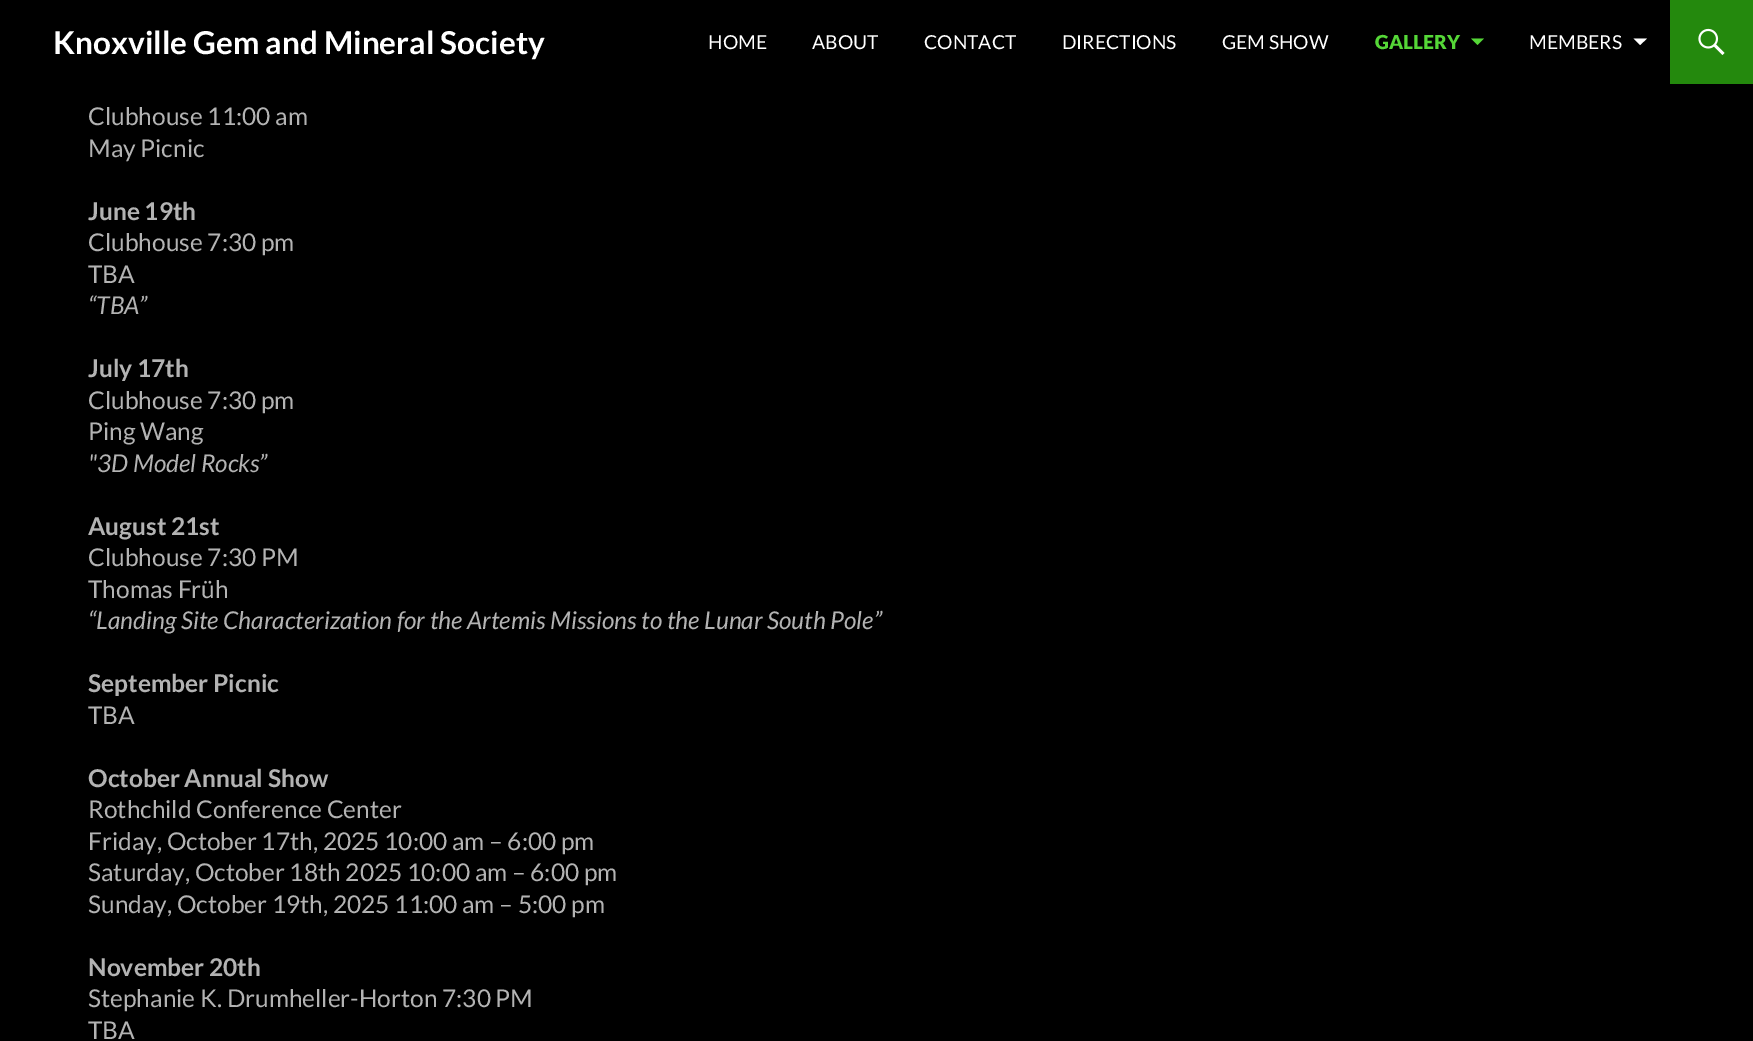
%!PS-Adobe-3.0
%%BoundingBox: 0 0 1753 1041
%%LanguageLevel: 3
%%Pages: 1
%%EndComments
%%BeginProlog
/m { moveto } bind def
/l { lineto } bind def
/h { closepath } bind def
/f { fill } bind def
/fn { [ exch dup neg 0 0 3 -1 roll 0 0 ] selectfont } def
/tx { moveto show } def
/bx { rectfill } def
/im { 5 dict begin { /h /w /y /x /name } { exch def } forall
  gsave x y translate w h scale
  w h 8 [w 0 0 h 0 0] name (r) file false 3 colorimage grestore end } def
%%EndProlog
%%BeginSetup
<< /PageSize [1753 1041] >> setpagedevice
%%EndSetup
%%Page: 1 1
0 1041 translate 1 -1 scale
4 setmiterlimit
0 setgray
0 0 1753 1041 bx
/Lato-Bold 31.5 fn
1 setgray
(Knoxville Gem and Mineral Society) 53 54 tx
/Lato-Regular 19.25 fn
(HOME) 708 49 tx
(ABOUT) 812 49 tx
(CONTACT) 924 49 tx
(DIRECTIONS) 1062 49 tx
(GEM SHOW) 1222 49 tx
/Lato-Black 19.25 fn
0.333 0.843 0.216 setrgbcolor
(GALLERY) 1375 49 tx
1471 38.5 m 1477.5 45 l 1484 38.5 l h f
/Lato-Regular 19.25 fn
1 setgray
(MEMBERS) 1529 49 tx
1633.5 38.5 m 1640 45 l 1647 38.5 l h f
0.141 0.537 0.051 setrgbcolor
1670 0 83 84 bx
(image0.raw) 1698 28 27 27 im
/Lato-Regular 24.5 fn
0.702 setgray
(Clubhouse 11:00 am) 88 125 tx
(May Picnic) 88 157 tx
/Lato-Bold 24.5 fn
(June 19th) 88 220 tx
/Lato-Regular 24.5 fn
(Clubhouse 7:30 pm) 88 251 tx
(TBA) 88 283 tx
/Lato-Italic 24.5 fn
(“TBA”) 88 314 tx
/Lato-Bold 24.5 fn
(July 17th) 88 377 tx
/Lato-Regular 24.5 fn
(Clubhouse 7:30 pm) 88 409 tx
(Ping Wang) 88 440 tx
/Lato-Italic 24.5 fn
("3D Model Rocks”) 88 472 tx
/Lato-Bold 24.5 fn
(August 21st) 88 535 tx
/Lato-Regular 24.5 fn
(Clubhouse 7:30 PM) 88 566 tx
(Thomas Früh) 88 598 tx
/Lato-Italic 24.5 fn
(“Landing Site Characterization for the Artemis Missions to the Lunar South Pole”) 88 629 tx
/Lato-Bold 24.5 fn
(September Picnic) 88 692 tx
/Lato-Regular 24.5 fn
(TBA) 88 724 tx
/Lato-Bold 24.5 fn
(October Annual Show) 88 787 tx
/Lato-Regular 24.5 fn
(Rothchild Conference Center) 88 818 tx
(Friday, October 17th, 2025 10:00 am – 6:00 pm) 88 850 tx
(Saturday, October 18th 2025 10:00 am – 6:00 pm) 88 881 tx
(Sunday, October 19th, 2025 11:00 am – 5:00 pm) 88 913 tx
/Lato-Bold 24.5 fn
(November 20th) 88 976 tx
/Lato-Regular 24.5 fn
(Stephanie K. Drumheller-Horton 7:30 PM) 88 1007 tx
(TBA) 88 1039 tx
showpage
%%EOF
